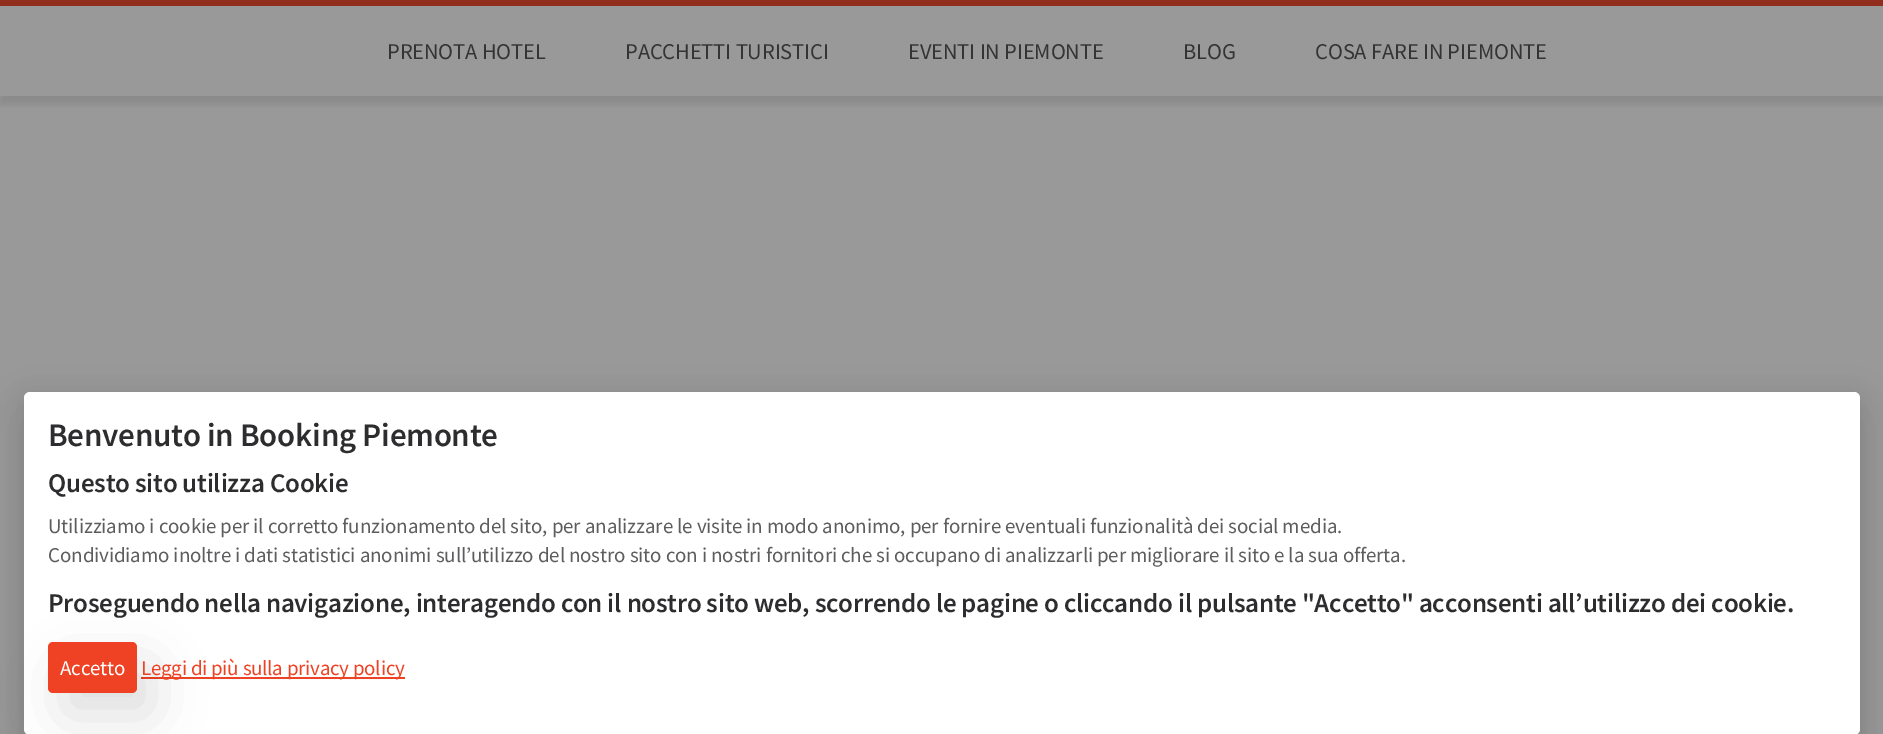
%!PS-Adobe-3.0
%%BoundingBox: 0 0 1883 734
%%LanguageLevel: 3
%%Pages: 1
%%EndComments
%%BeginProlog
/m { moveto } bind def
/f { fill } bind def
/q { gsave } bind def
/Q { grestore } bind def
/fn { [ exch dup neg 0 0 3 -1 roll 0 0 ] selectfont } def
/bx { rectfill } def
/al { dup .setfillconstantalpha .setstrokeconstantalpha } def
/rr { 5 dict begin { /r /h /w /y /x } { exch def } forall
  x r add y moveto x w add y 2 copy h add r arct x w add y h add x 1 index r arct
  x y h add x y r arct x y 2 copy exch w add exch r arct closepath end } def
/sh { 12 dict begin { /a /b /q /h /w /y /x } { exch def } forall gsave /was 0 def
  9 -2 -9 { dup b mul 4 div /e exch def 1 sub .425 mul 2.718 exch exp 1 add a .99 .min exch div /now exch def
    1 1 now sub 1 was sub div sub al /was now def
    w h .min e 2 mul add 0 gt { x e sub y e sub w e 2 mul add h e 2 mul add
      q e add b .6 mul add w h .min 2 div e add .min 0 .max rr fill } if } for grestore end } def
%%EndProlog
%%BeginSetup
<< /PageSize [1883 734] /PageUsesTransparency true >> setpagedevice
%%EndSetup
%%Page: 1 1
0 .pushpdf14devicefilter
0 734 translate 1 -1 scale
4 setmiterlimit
0.6 setgray
0 0 1883 734 bx
q
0 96 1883 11 rectclip
0.031 setgray
0 8 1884 96 0 4 0.1 sh
Q
0.565 0.176 0.11 setrgbcolor
0 0 1883 6 bx
/SourceSansPro-Regular 22.5 fn
0.204 0.204 0.208 setrgbcolor
387 59 m -0.12 0 (PRENOTA HOTEL) ashow
625 59 m -0.12 0 (PACCHETTI TURISTICI) ashow
908 59 m -0.12 0 (EVENTI IN PIEMONTE) ashow
1183 59 m -0.12 0 (BLOG) ashow
1315 59 m -0.12 0 (COSA FARE IN PIEMONTE) ashow
0 setgray
24 399 1836 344 6 11 0.08 sh
24 414 1836 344 6 22.5 0.11 sh
1 setgray
24 392 1836 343 6 rr f
/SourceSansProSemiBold-SemiBold 33 fn
0.176 0.176 0.184 setrgbcolor
48 446 m -0.24 0 (Benvenuto in Booking Piemonte) ashow
/SourceSansProSemiBold-SemiBold 27 fn
48 492 m -0.24 0 (Questo sito utilizza Cookie) ashow
/SourceSansPro-Regular 21 fn
0.365 0.365 0.373 setrgbcolor
48 533 m -0.12 0 (Utilizziamo i cookie per il corretto funzionamento del sito, per analizzare le visite in modo anonimo, per fornire eventuali funzionalità dei social media.) ashow
48 562 m -0.12 0 (Condividiamo inoltre i dati statistici anonimi sull’utilizzo del nostro sito con i nostri fornitori che si occupano di analizzarli per migliorare il sito e la sua offerta.) ashow
/SourceSansProSemiBold-SemiBold 27 fn
0.176 0.176 0.184 setrgbcolor
48 612 m -0.24 0 (Proseguendo nella navigazione, interagendo con il nostro sito web, scorrendo le pagine o cliccando il pulsante "Accetto" acconsenti all’utilizzo dei cookie.) ashow
0.937 0.255 0.137 setrgbcolor
141 677 264 2 bx
0 setgray
63 665 89 51 5 25.5 0.12 sh
0.937 0.255 0.137 setrgbcolor
48 642 89 51 5 rr f
/SourceSansPro-Regular 21 fn
1 setgray
60 675 m -0.24 0 (Accetto) ashow
0.937 0.255 0.137 setrgbcolor
141 675 m -0.24 0 (Leggi di più sulla privacy policy) ashow
.poppdf14devicefilter showpage
%%EOF
